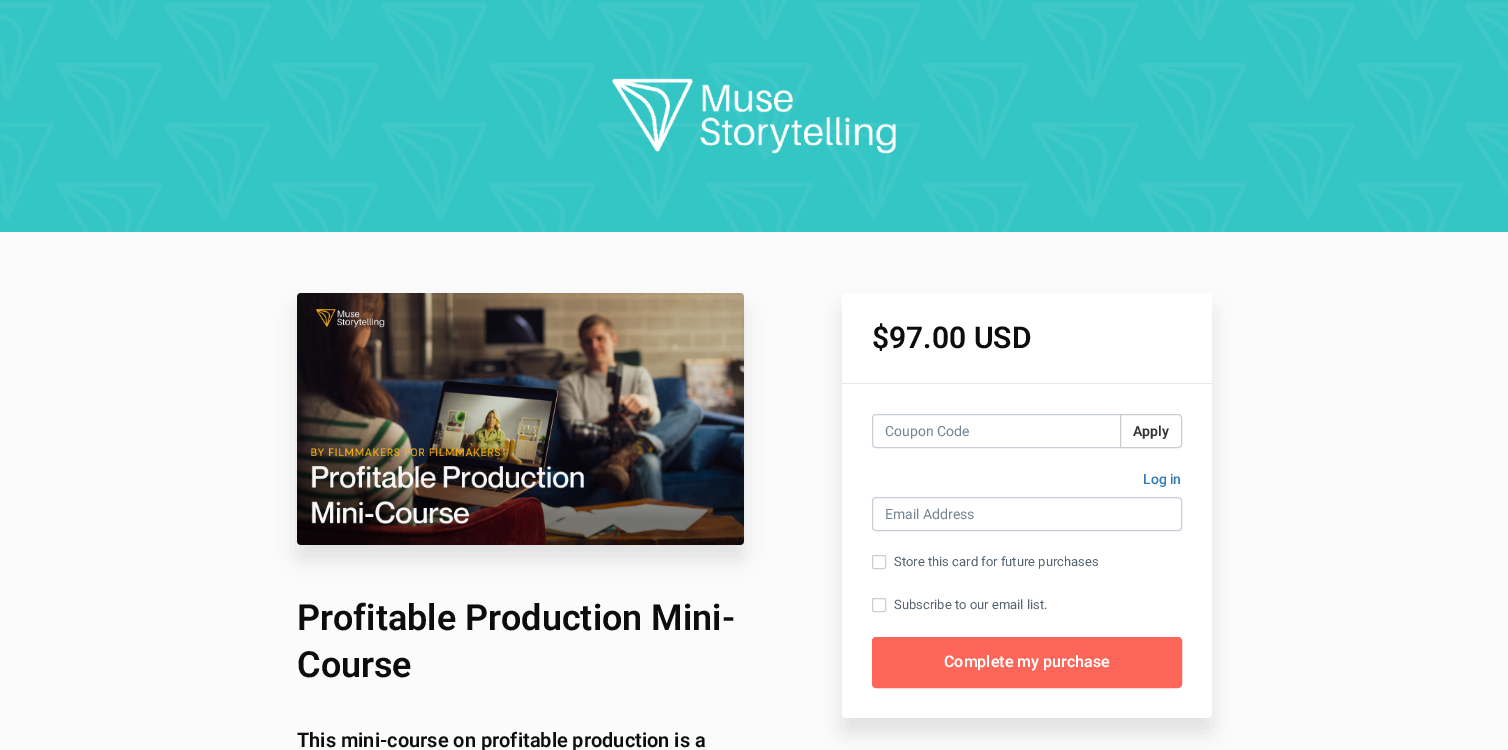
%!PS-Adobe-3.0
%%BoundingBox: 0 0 1508 750
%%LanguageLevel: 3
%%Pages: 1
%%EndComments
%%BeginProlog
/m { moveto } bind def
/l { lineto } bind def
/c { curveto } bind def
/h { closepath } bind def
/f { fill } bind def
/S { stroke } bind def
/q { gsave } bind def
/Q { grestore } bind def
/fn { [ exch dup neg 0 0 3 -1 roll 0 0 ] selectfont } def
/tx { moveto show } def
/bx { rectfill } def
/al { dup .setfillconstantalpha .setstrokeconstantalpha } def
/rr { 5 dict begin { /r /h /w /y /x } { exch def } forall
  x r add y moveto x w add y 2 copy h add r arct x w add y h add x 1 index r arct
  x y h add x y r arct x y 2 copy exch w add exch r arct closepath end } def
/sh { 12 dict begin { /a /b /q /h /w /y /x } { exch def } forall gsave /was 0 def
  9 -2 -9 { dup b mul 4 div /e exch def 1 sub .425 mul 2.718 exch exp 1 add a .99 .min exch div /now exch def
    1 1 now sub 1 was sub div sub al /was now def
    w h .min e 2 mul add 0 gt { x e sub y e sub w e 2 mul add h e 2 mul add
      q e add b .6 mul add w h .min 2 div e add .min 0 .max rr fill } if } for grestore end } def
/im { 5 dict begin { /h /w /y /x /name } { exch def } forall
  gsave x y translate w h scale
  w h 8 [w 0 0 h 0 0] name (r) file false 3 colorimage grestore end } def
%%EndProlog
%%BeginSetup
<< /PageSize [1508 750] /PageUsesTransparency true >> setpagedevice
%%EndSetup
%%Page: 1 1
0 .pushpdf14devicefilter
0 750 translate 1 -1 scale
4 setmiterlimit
0.984 setgray
0 0 1508 750 bx
(image0.raw) 0 0 1508 232 im
(image1.raw) 612 78 284 76 im
0 setgray
297 308 447 252 4 10 0.1 sh
(image2.raw) 297 293 447 252 im
/Roboto-SemiBold 36 fn
0.051 setgray
(Profitable Production Mini-) 297 630 tx
(Course) 297 677 tx
/Roboto-SemiBold 20 fn
(This mini-course on profitable production is a) 297 747 tx
0 setgray
842 308 370 425 4 10 0.1 sh
1 setgray
842 293 370 425 4 rr f
0.898 0.914 0.914 setrgbcolor
842 383 370 1 bx
/Roboto-SemiBold 30 fn
0.051 setgray
($97.00 USD) 872 348 tx
0.78 0.812 0.847 setrgbcolor
876 414.5 m 1120.5 414.5 l 1120.5 447.5 l 876 447.5 l 874 447.5 872.5 446 872.5 444 c 872.5 418 l 872.5 416 874 414.5 876 414.5 c h S
/Roboto-Regular 14 fn
0.455 0.518 0.576 setrgbcolor
(Coupon Code) 885 436 tx
1 setgray
1120.5 414.5 m 1178 414.5 l 1180 414.5 1181.5 416 1181.5 418 c 1181.5 444 l 1181.5 446 1180 447.5 1178 447.5 c 1120.5 447.5 l h q f Q
0.8 setgray
S
/Roboto-SemiBold 14 fn
0.2 setgray
(Apply) 1133 436 tx
/Roboto-Medium 14 fn
0.2 0.478 0.718 setrgbcolor
(Log in) 1143 484 tx
0.78 0.812 0.847 setrgbcolor
872.5 497.5 309 33 3.5 rr S
/Roboto-Regular 14 fn
0.455 0.518 0.576 setrgbcolor
(Email Address) 885 519 tx
0.78 0.812 0.847 setrgbcolor
872.5 555.5 13 13 1.5 rr S
/Roboto-Regular 13 fn
0.333 0.388 0.439 setrgbcolor
(Store this card for future purchases) 894 566 tx
0.78 0.812 0.847 setrgbcolor
872.5 598.5 13 13 1.5 rr S
0.333 0.388 0.439 setrgbcolor
(Subscribe to our email list.) 894 609 tx
1 0.4 0.353 setrgbcolor
872.5 637.5 309 50 3.5 rr q f Q
S
/Roboto-SemiBold 16 fn
1 setgray
(Complete my purchase) 944 667 tx
.poppdf14devicefilter showpage
%%EOF
